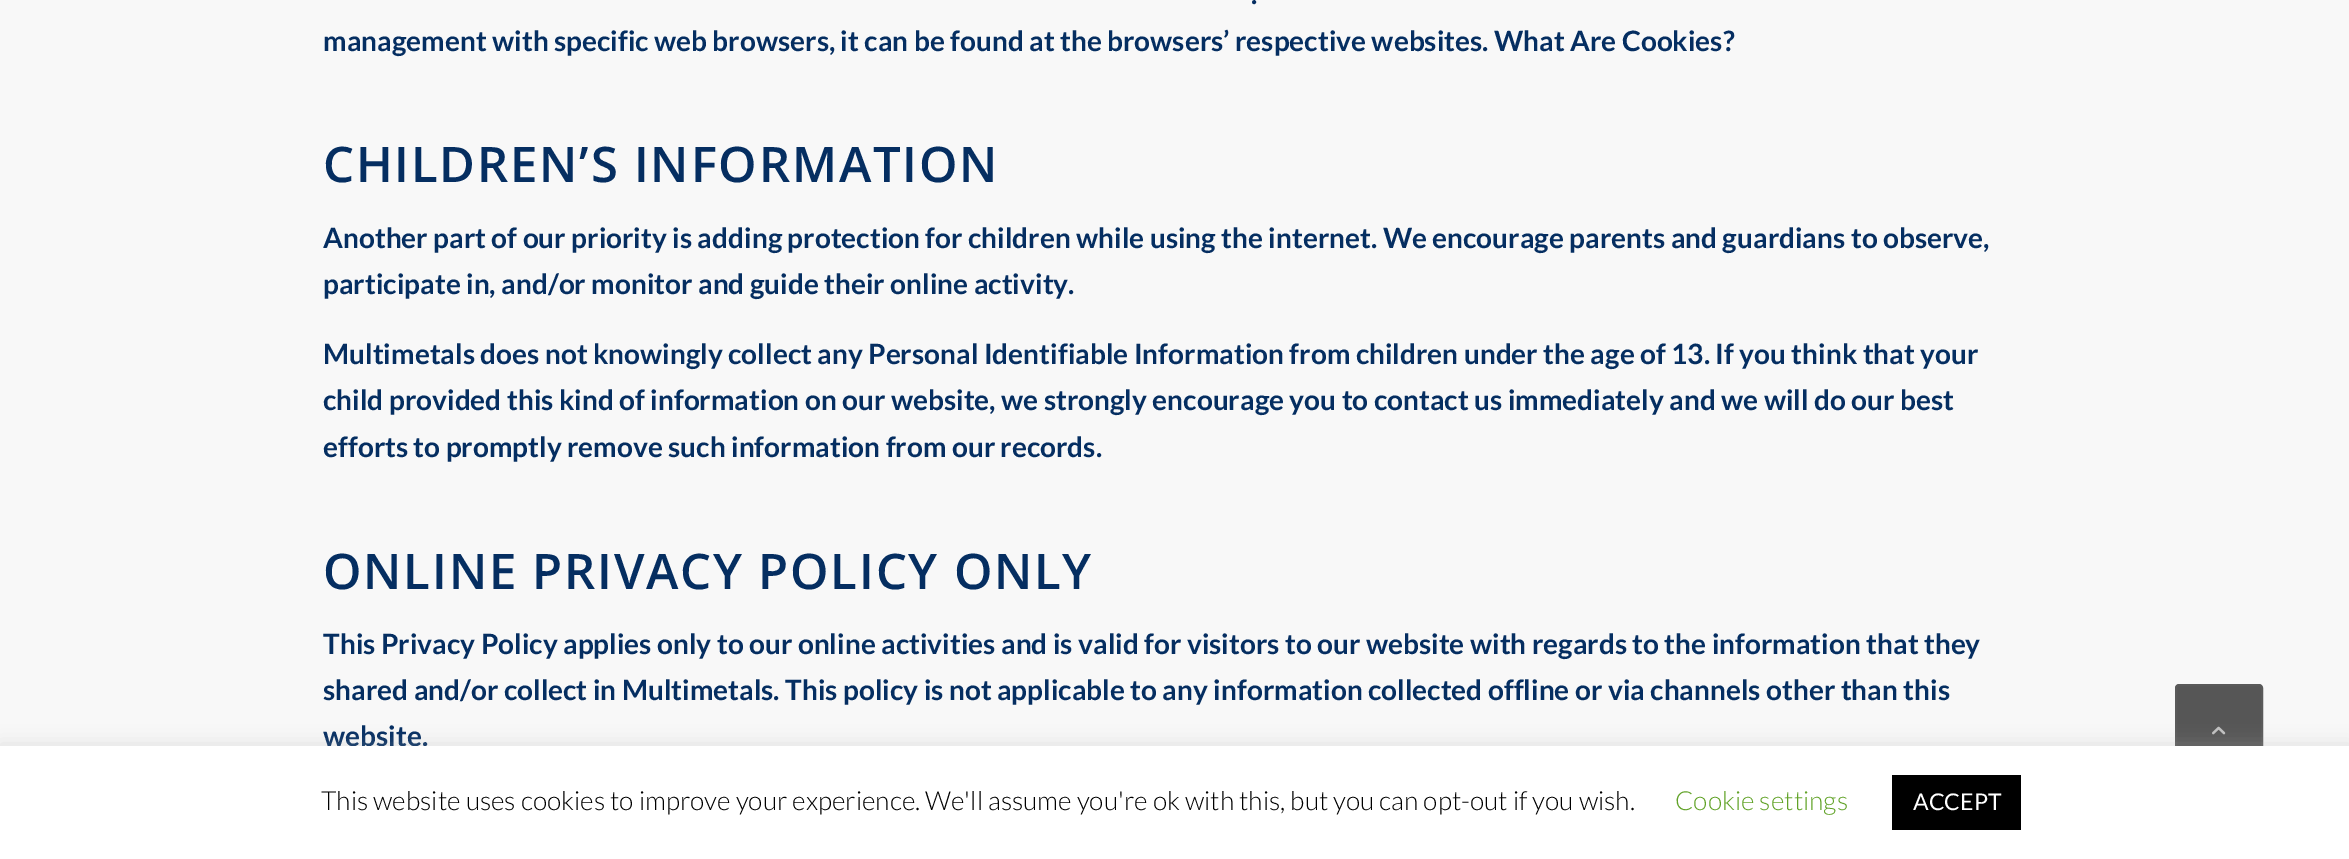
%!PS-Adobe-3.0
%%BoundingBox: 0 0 2349 859
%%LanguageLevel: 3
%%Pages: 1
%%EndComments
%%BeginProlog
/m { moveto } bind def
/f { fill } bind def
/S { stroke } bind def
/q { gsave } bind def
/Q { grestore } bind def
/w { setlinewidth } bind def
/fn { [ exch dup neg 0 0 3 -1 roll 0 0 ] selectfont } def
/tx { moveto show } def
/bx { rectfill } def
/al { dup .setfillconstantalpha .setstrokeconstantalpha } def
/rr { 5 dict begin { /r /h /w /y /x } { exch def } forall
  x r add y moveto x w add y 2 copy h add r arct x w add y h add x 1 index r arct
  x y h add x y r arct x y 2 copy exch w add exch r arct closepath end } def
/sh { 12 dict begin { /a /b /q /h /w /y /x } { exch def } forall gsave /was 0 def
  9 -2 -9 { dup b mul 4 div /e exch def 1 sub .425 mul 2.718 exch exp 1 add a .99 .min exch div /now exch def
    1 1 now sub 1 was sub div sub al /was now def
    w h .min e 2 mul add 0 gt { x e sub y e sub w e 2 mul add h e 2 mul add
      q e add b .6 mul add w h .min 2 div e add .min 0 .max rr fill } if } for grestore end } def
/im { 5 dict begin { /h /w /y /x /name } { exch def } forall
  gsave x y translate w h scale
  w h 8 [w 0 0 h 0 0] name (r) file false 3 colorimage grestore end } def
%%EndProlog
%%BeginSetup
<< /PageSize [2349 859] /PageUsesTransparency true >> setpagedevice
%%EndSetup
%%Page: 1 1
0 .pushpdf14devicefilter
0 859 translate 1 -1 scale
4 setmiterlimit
0.973 setgray
0 0 2349 859 bx
/Lato-Bold 28 fn
0.02 0.18 0.38 setrgbcolor
(.) 1251 4 tx
(management with specific web browsers, it can be found at the browsers’ respective websites. What Are Cookies?) 323 51 tx
/OpenSans-SemiBold 49 fn
323 182 m 1.75 0 (CHILDREN’S INFORMATION) ashow
/Lato-Bold 28 fn
(Another part of our priority is adding protection for children while using the internet. We encourage parents and guardians to observe,) 323 248 tx
(participate in, and/or monitor and guide their online activity.) 323 294 tx
(Multimetals does not knowingly collect any Personal Identifiable Information from children under the age of 13. If you think that your) 323 364 tx
(child provided this kind of information on our website, we strongly encourage you to contact us immediately and we will do our best) 323 410 tx
(efforts to promptly remove such information from our records.) 323 457 tx
/OpenSans-SemiBold 49 fn
323 589 m 1.75 0 (ONLINE PRIVACY POLICY ONLY) ashow
/Lato-Bold 28 fn
(This Privacy Policy applies only to our online activities and is valid for visitors to our website with regards to the information that they) 323 654 tx
(shared and/or collect in Multimetals. This policy is not applicable to any information collected offline or via channels other than this) 323 700 tx
(website.) 323 746 tx
0.337 setgray
2176 685 86 86 3 rr q f Q
0.353 setgray
2 w
S
(image0.raw) 2212 726 14 9 im
0.675 0.671 0.671 setrgbcolor
0 744 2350 114 0 9 0.3 sh
1 setgray
0 746 2349 113 bx
/Lato-Light 26.25 fn
0 setgray
(This website uses cookies to improve your experience. We'll assume you're ok with this, but you can opt-out if you wish.) 321 810 tx
0.384 0.639 0.161 setrgbcolor
(Cookie settings) 1675 810 tx
0 setgray
1892 775 129 55 bx
/Lato-Regular 23 fn
1 setgray
(ACCEPT) 1913 810 tx
.poppdf14devicefilter showpage
%%EOF
